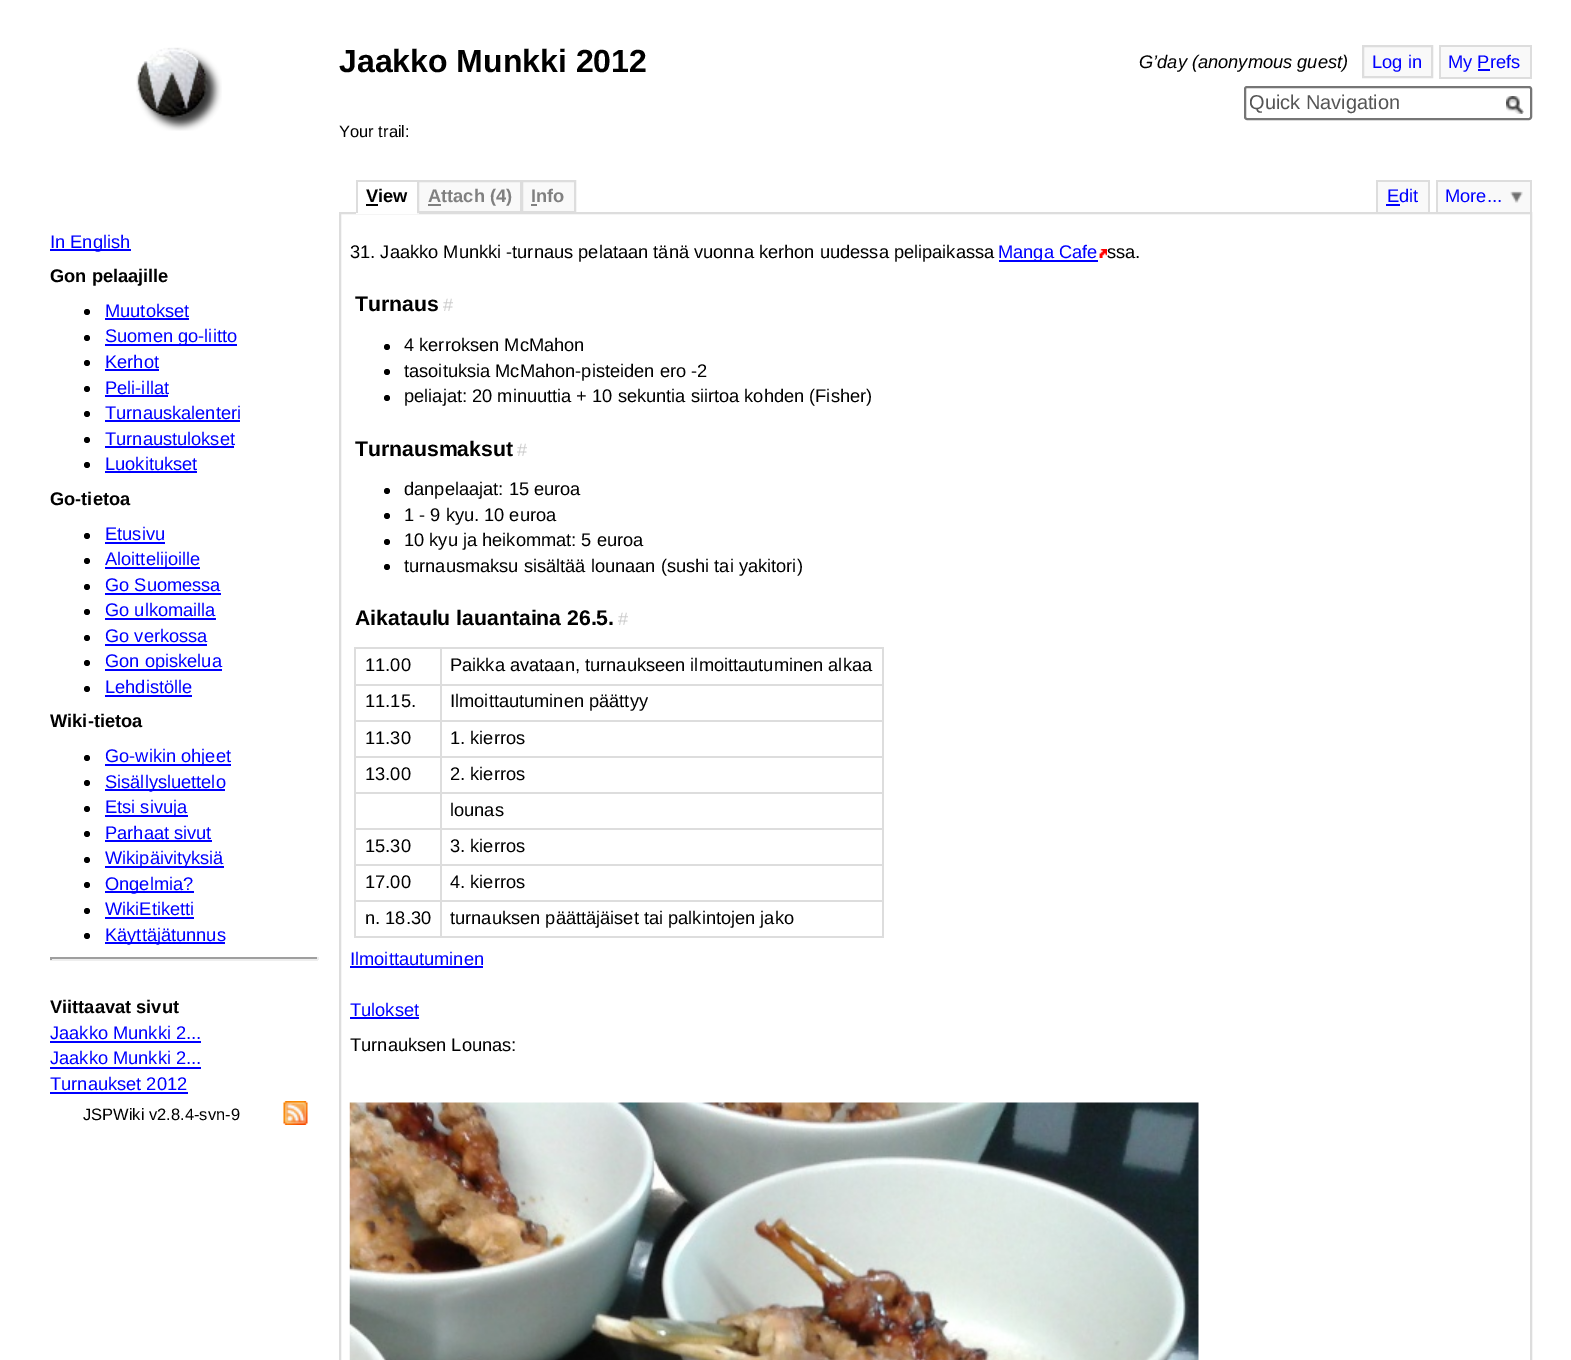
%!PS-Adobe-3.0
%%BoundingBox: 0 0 1571 1360
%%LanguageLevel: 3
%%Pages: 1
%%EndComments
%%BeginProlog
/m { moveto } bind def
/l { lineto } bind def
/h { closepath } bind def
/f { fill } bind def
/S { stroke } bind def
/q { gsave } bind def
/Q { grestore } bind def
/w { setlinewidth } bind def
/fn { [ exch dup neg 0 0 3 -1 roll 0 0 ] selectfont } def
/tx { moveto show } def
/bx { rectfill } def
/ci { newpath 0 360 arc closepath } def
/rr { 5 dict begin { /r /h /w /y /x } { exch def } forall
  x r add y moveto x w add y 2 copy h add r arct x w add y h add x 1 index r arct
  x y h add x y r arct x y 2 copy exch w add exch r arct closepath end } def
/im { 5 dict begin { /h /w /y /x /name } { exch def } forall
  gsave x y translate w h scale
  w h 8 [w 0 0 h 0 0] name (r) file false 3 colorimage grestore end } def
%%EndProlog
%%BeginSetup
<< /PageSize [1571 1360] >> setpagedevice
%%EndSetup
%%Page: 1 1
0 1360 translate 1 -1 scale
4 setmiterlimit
1 setgray
0 0 1571 1360 bx
(image0.raw) 136 47 86 84 im
/LiberationSans-Bold 32 fn
0 setgray
(Jaakko Munkki 2012) 339 72 tx
/LiberationSans-Italic 18.25 fn
(G’day \(anonymous guest\)) 1139 68 tx
0.976 setgray
1363 46 m 1432 46 l 1432 77 l 1363 77 l h q f Q
0.867 setgray
2 w
S
/LiberationSans-Regular 18.25 fn
0 0 1 setrgbcolor
(Log in) 1372 68 tx
0.976 setgray
1441 47 89 30 bx
0 0 1 setrgbcolor
(My Prefs) 1448 68 tx
0.867 setgray
1439 45 93 2 bx
1439 77 51 2 bx
1439 45 2 33 bx
1530 45 2 33 bx
1490 77 42 2 bx
0 0 1 setrgbcolor
1478 69 12 2 bx
0.463 setgray
1245 87 286 32 2 rr S
/LiberationSans-Regular 20 fn
0.333 setgray
(Quick Navigation) 1249 109 tx
(image1.raw) 1506 96 18 18 im
/LiberationSans-Regular 16.5 fn
0 setgray
(Your trail:) 339 137 tx
0 0 1 setrgbcolor
50 249 81 2 bx
/LiberationSans-Regular 18.25 fn
(In English) 50 248 tx
/LiberationSans-Bold 18.25 fn
0 setgray
(Gon pelaajille) 50 282 tx
87 312 3 ci f
/LiberationSans-Regular 18.25 fn
0 0 1 setrgbcolor
(Muutokset) 105 317 tx
105 318 84 2 bx
0 setgray
87 338 3 ci f
0 0 1 setrgbcolor
105 344 132 2 bx
(Suomen go-liitto) 105 342 tx
0 setgray
87 363 3 ci f
0 0 1 setrgbcolor
(Kerhot) 105 368 tx
105 369 54 2 bx
0 setgray
87 389 3 ci f
0 0 1 setrgbcolor
(Peli-illat) 105 394 tx
105 395 63 2 bx
0 setgray
87 414 3 ci f
0 0 1 setrgbcolor
(Turnauskalenteri) 105 419 tx
105 420 135 2 bx
0 setgray
87 440 3 ci f
0 0 1 setrgbcolor
(Turnaustulokset) 105 445 tx
105 446 129 2 bx
0 setgray
87 465 3 ci f
0 0 1 setrgbcolor
(Luokitukset) 105 470 tx
105 471 92 2 bx
/LiberationSans-Bold 18.25 fn
0 setgray
(Go-tietoa) 50 505 tx
87 536 3 ci f
/LiberationSans-Regular 18.25 fn
0 0 1 setrgbcolor
(Etusivu) 105 540 tx
105 542 60 2 bx
0 setgray
87 561 3 ci f
0 0 1 setrgbcolor
105 567 95 2 bx
(Aloittelijoille) 105 565 tx
0 setgray
87 587 3 ci f
0 0 1 setrgbcolor
(Go Suomessa) 105 591 tx
105 593 116 2 bx
0 setgray
87 612 3 ci f
0 0 1 setrgbcolor
(Go ulkomailla) 105 616 tx
105 618 111 2 bx
0 setgray
87 638 3 ci f
0 0 1 setrgbcolor
(Go verkossa) 105 642 tx
105 644 102 2 bx
0 setgray
87 663 3 ci f
0 0 1 setrgbcolor
105 669 117 2 bx
(Gon opiskelua) 105 667 tx
0 setgray
87 689 3 ci f
0 0 1 setrgbcolor
(Lehdistölle) 105 693 tx
105 695 87 2 bx
/LiberationSans-Bold 18.25 fn
0 setgray
(Wiki-tietoa) 50 727 tx
87 758 3 ci f
0 0 1 setrgbcolor
105 764 126 2 bx
/LiberationSans-Regular 18.25 fn
(Go-wikin ohjeet) 105 762 tx
0 setgray
87 783 3 ci f
0 0 1 setrgbcolor
105 789 120 2 bx
(Sisällysluettelo) 105 788 tx
0 setgray
87 809 3 ci f
0 0 1 setrgbcolor
105 815 83 2 bx
(Etsi sivuja) 105 813 tx
0 setgray
87 834 3 ci f
0 0 1 setrgbcolor
(Parhaat sivut) 105 839 tx
105 840 107 2 bx
0 setgray
87 860 3 ci f
0 0 1 setrgbcolor
105 866 119 2 bx
(Wikipäivityksiä) 105 864 tx
0 setgray
87 885 3 ci f
0 0 1 setrgbcolor
105 891 89 2 bx
(Ongelmia?) 105 890 tx
0 setgray
87 911 3 ci f
0 0 1 setrgbcolor
(WikiEtiketti) 105 915 tx
105 917 89 2 bx
0 setgray
87 936 3 ci f
0 0 1 setrgbcolor
105 942 120 2 bx
(Käyttäjätunnus) 105 941 tx
0.624 setgray
50 957 268 2 bx
0.933 setgray
317 957 2 3 bx
50 959 268 2 bx
0.624 setgray
50 957 2 3 bx
/LiberationSans-Bold 18.25 fn
0 setgray
(Viittaavat sivut) 50 1013 tx
/LiberationSans-Regular 18.25 fn
0 0 1 setrgbcolor
(Jaakko Munkki 2...) 50 1039 tx
50 1041 151 2 bx
(Jaakko Munkki 2...) 50 1064 tx
50 1067 151 2 bx
(Turnaukset 2012) 50 1090 tx
50 1092 138 2 bx
/LiberationSans-Regular 16.5 fn
0 setgray
(JSPWiki v2.8.4-svn-9) 83 1120 tx
(image2.raw) 283 1101 25 24 im
0.867 setgray
356 180 63 2 bx
340 213 1191 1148 rectstroke
1 setgray
356 212 63 2 bx
0.867 setgray
356 180 2 33 bx
/LiberationSans-Bold 18.25 fn
0 setgray
(View) 366 202 tx
366 204 12 2 bx
0.976 setgray
418 181 m 521 181 l 521 212 l 418 212 l h q f Q
0.867 setgray
S
0.502 setgray
428 204 13 2 bx
(Attach \(4\)) 428 202 tx
0.976 setgray
522 181 m 575 181 l 575 212 l 522 212 l h q f Q
0.867 setgray
S
0.502 setgray
(Info) 531 202 tx
531 204 6 2 bx
0.976 setgray
1378 182 50 30 bx
0.867 setgray
1376 180 54 2 bx
1428 180 2 32 bx
1376 180 2 32 bx
/LiberationSans-Regular 18.25 fn
0 0 1 setrgbcolor
(Edit) 1387 202 tx
1386 204 14 2 bx
0.976 setgray
1438 182 92 30 bx
(image3.raw) 1510 191 13 12 im
0.867 setgray
1436 180 96 2 bx
1530 180 2 32 bx
1436 180 2 32 bx
0 0 1 setrgbcolor
(More...) 1445 202 tx
0 setgray
(31. Jaakko Munkki -turnaus pelataan tänä vuonna kerhon uudessa pelipaikassa) 350 258 tx
0 0 1 setrgbcolor
999 260 99 2 bx
(Manga Cafe) 998 258 tx
(image4.raw) 1099 249 8 9 im
0 setgray
(ssa.) 1107 258 tx
/LiberationSans-Bold 21.2 fn
(Turnaus) 355 311 tx
/LiberationSans-Regular 18 fn
0.8 setgray
(#) 443 311 tx
0 setgray
387 347 3 ci f
/LiberationSans-Regular 18.25 fn
(4 kerroksen McMahon) 404 351 tx
387 372 3 ci f
(tasoituksia McMahon-pisteiden ero -2) 404 377 tx
387 398 3 ci f
(peliajat: 20 minuuttia + 10 sekuntia siirtoa kohden \(Fisher\)) 404 402 tx
/LiberationSans-Bold 21.2 fn
(Turnausmaksut) 355 456 tx
/LiberationSans-Regular 18 fn
0.8 setgray
(#) 517 456 tx
0 setgray
387 491 3 ci f
/LiberationSans-Regular 18.25 fn
(danpelaajat: 15 euroa) 404 495 tx
387 516 3 ci f
(1 - 9 kyu. 10 euroa) 404 521 tx
387 542 3 ci f
(10 kyu ja heikommat: 5 euroa) 404 546 tx
387 567 3 ci f
(turnausmaksu sisältää lounaan \(sushi tai yakitori\)) 404 572 tx
/LiberationSans-Bold 21.2 fn
(Aikataulu lauantaina 26.5.) 355 625 tx
/LiberationSans-Regular 18 fn
0.8 setgray
(#) 618 625 tx
0.867 setgray
440 647 444 2 bx
440 684 444 2 bx
440 720 444 2 bx
440 756 444 2 bx
440 792 444 2 bx
440 828 444 2 bx
440 864 444 2 bx
440 900 444 2 bx
882 900 2 38 bx
440 936 444 2 bx
440 900 2 38 bx
354 900 87 2 bx
440 864 2 38 bx
354 864 87 2 bx
440 828 2 38 bx
354 828 87 2 bx
440 792 2 38 bx
354 792 87 2 bx
440 756 2 38 bx
354 756 87 2 bx
440 720 2 38 bx
354 720 87 2 bx
440 684 2 38 bx
354 684 87 2 bx
440 647 2 39 bx
354 647 87 2 bx
354 936 87 2 bx
354 900 2 38 bx
354 864 2 38 bx
354 828 2 38 bx
354 792 2 38 bx
354 756 2 38 bx
354 720 2 38 bx
354 684 2 38 bx
354 647 2 39 bx
/LiberationSans-Regular 18.25 fn
0 setgray
(11.00) 365 671 tx
0.867 setgray
882 864 2 38 bx
882 828 2 38 bx
882 792 2 38 bx
882 756 2 38 bx
882 720 2 38 bx
882 684 2 38 bx
882 647 2 39 bx
0 setgray
(Paikka avataan, turnaukseen ilmoittautuminen alkaa) 450 671 tx
(11.15.) 365 707 tx
(Ilmoittautuminen päättyy) 450 707 tx
(11.30) 365 744 tx
(1. kierros) 450 744 tx
(13.00) 365 780 tx
(2. kierros) 450 780 tx
(lounas) 450 816 tx
(15.30) 365 852 tx
(3. kierros) 450 852 tx
(17.00) 365 888 tx
(4. kierros) 450 888 tx
(n. 18.30) 365 924 tx
(turnauksen päättäjäiset tai palkintojen jako) 450 924 tx
0 0 1 setrgbcolor
(Ilmoittautuminen) 350 965 tx
350 966 133 2 bx
(Tulokset) 350 1016 tx
350 1017 69 2 bx
0 setgray
(Turnauksen Lounas:) 350 1051 tx
(image5.raw) 349 1102 850 258 im
showpage
%%EOF
